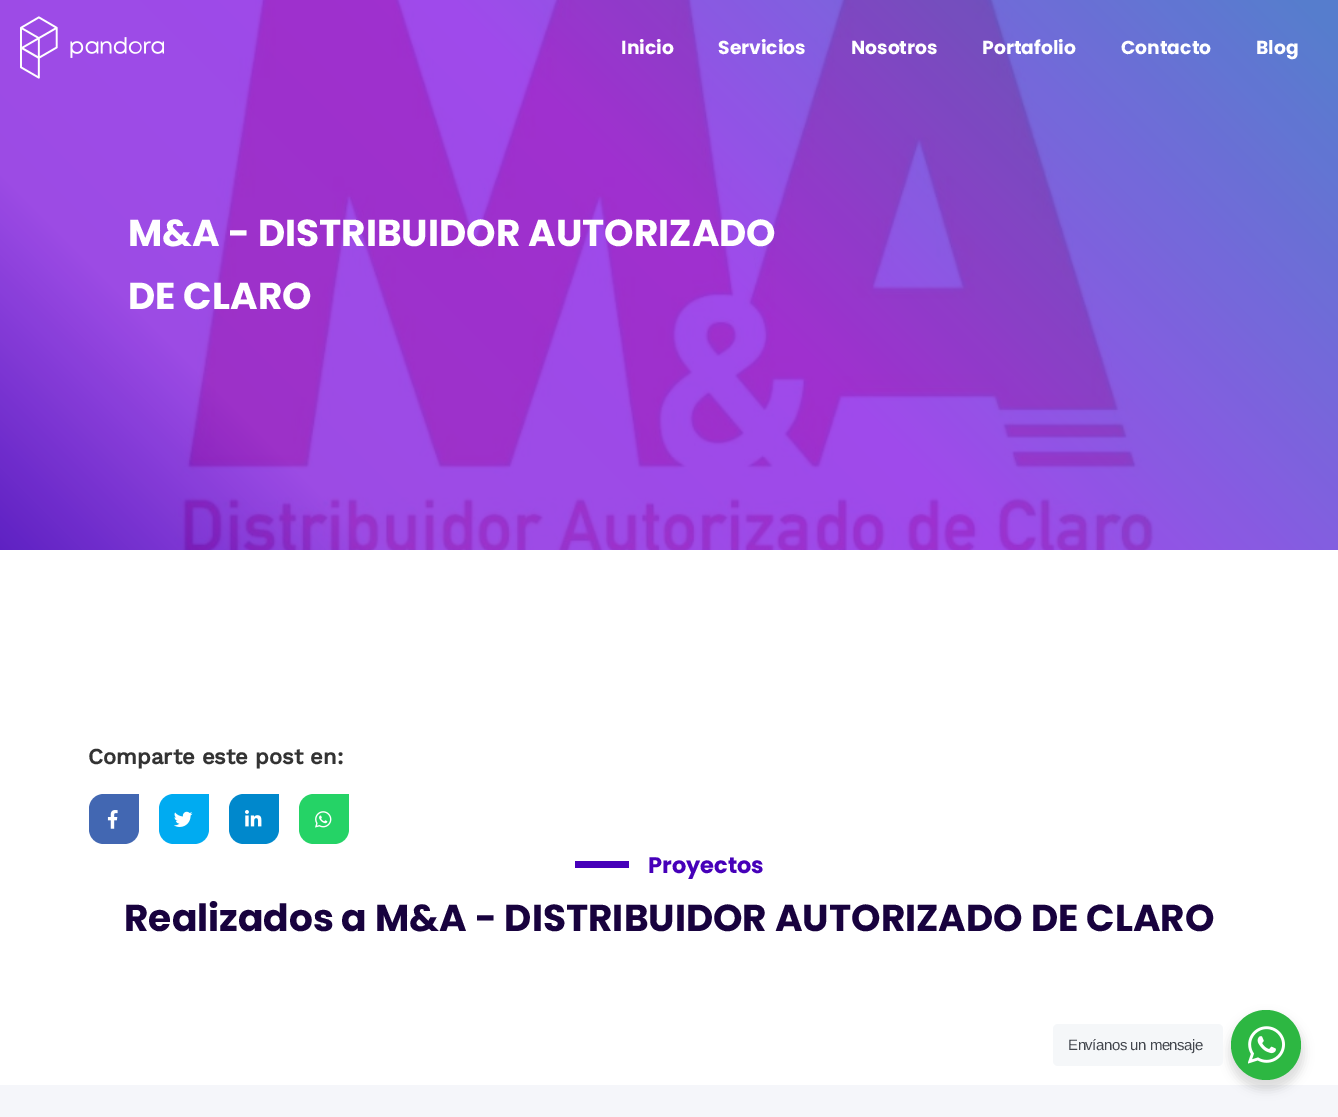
%!PS-Adobe-3.0
%%BoundingBox: 0 0 1338 1117
%%LanguageLevel: 3
%%Pages: 1
%%EndComments
%%BeginProlog
/m { moveto } bind def
/l { lineto } bind def
/c { curveto } bind def
/h { closepath } bind def
/f { fill } bind def
/q { gsave } bind def
/Q { grestore } bind def
/fn { [ exch dup neg 0 0 3 -1 roll 0 0 ] selectfont } def
/tx { moveto show } def
/bx { rectfill } def
/al { dup .setfillconstantalpha .setstrokeconstantalpha } def
/ci { newpath 0 360 arc closepath } def
/rr { 5 dict begin { /r /h /w /y /x } { exch def } forall
  x r add y moveto x w add y 2 copy h add r arct x w add y h add x 1 index r arct
  x y h add x y r arct x y 2 copy exch w add exch r arct closepath end } def
/sh { 12 dict begin { /a /b /q /h /w /y /x } { exch def } forall gsave /was 0 def
  9 -2 -9 { dup b mul 4 div /e exch def 1 sub .425 mul 2.718 exch exp 1 add a .99 .min exch div /now exch def
    1 1 now sub 1 was sub div sub al /was now def
    w h .min e 2 mul add 0 gt { x e sub y e sub w e 2 mul add h e 2 mul add
      q e add b .6 mul add w h .min 2 div e add .min 0 .max rr fill } if } for grestore end } def
/im { 5 dict begin { /h /w /y /x /name } { exch def } forall
  gsave x y translate w h scale
  w h 8 [w 0 0 h 0 0] name (r) file false 3 colorimage grestore end } def
%%EndProlog
%%BeginSetup
<< /PageSize [1338 1117] /PageUsesTransparency true >> setpagedevice
%%EndSetup
%%Page: 1 1
0 .pushpdf14devicefilter
0 1117 translate 1 -1 scale
4 setmiterlimit
1 setgray
0 0 1338 1117 bx
q 0 0 m 1338 0 l 1338 550 l 0 550 l h clip newpath
<< /ShadingType 2 /ColorSpace /DeviceRGB /Coords [197 747 1142 -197] /Extend [true true] /Function << /FunctionType 3 /Domain [0 1] /Functions [<< /FunctionType 2 /Domain [0 1] /C0 [0.275 0 0.725] /C1 [0.553 0.188 0.878] /N 1 >> << /FunctionType 2 /Domain [0 1] /C0 [0.553 0.188 0.878] /C1 [0.569 0.184 0.91] /N 1 >> << /FunctionType 2 /Domain [0 1] /C0 [0.569 0.184 0.91] /C1 [0.239 0.416 0.776] /N 1 >> << /FunctionType 2 /Domain [0 1] /C0 [0.239 0.416 0.776] /C1 [0.239 0.416 0.776] /N 1 >>] /Bounds [0.2 0.53 0.98] /Encode [0 1 0 1 0 1 0 1] >> >> shfill Q
(image1.raw) 0 0 1338 550 im
(image0.raw) 20 16 144 63 im
/Poppins-Bold 18.75 fn
(Inicio) 621 54 tx
(Servicios) 718 54 tx
(Nosotros) 851 54 tx
(Portafolio) 982 54 tx
(Contacto) 1121 54 tx
(Blog) 1256 54 tx
/Poppins-Bold 37.5 fn
(M&A - DISTRIBUIDOR AUTORIZADO) 128 246 tx
(DE CLARO) 128 309 tx
/WorkSans-Bold 22 fn
0.2 setgray
(Comparte este post en:) 88 764 tx
0.259 0.404 0.698 setrgbcolor
104 794 m 139 794 l 139 829 l 139 837.5 132.5 844 124 844 c 104 844 l 95.5 844 89 837.5 89 829 c 89 809 l 89 800.5 95.5 794 104 794 c h f
(image2.raw) 107 810 11 19 im
0 0.671 0.945 setrgbcolor
174 794 m 209 794 l 209 829 l 209 837.5 202.5 844 194 844 c 174 844 l 165.5 844 159 837.5 159 829 c 159 809 l 159 800.5 165.5 794 174 794 c h f
(image3.raw) 174 811 19 16 im
0 0.533 0.8 setrgbcolor
244 794 m 279 794 l 279 829 l 279 837.5 272.5 844 264 844 c 244 844 l 235.5 844 229 837.5 229 829 c 229 809 l 229 800.5 235.5 794 244 794 c h f
(image4.raw) 245 810 17 17 im
0.145 0.827 0.4 setrgbcolor
314 794 m 349 794 l 349 829 l 349 837.5 342.5 844 334 844 c 314 844 l 305.5 844 299 837.5 299 829 c 299 809 l 299 800.5 305.5 794 314 794 c h f
(image5.raw) 315 811 17 17 im
0.275 0 0.725 setrgbcolor
575 861 54 7 bx
/Poppins-Bold 22.5 fn
(Proyectos) 648 873 tx
/Poppins-Bold 37.5 fn
0.094 0.008 0.243 setrgbcolor
(Realizados a M&A - DISTRIBUIDOR AUTORIZADO DE CLARO) 124 931 tx
0.961 0.965 0.98 setrgbcolor
0 1085 1338 32 bx
0 setgray
1229 1015 75 75 37.5 5 0.14 sh
0.961 0.969 0.976 setrgbcolor
1053 1024 170 42 5 rr f
/LiberationSans-Regular 15 fn
0.263 0.278 0.306 setrgbcolor
1068 1050 m -0.5 0 (Envíanos un mensaje) ashow
0.176 0.718 0.259 setrgbcolor
1266 1045 35 ci f
(image6.raw) 1248 1026 37 38 im
.poppdf14devicefilter showpage
%%EOF
